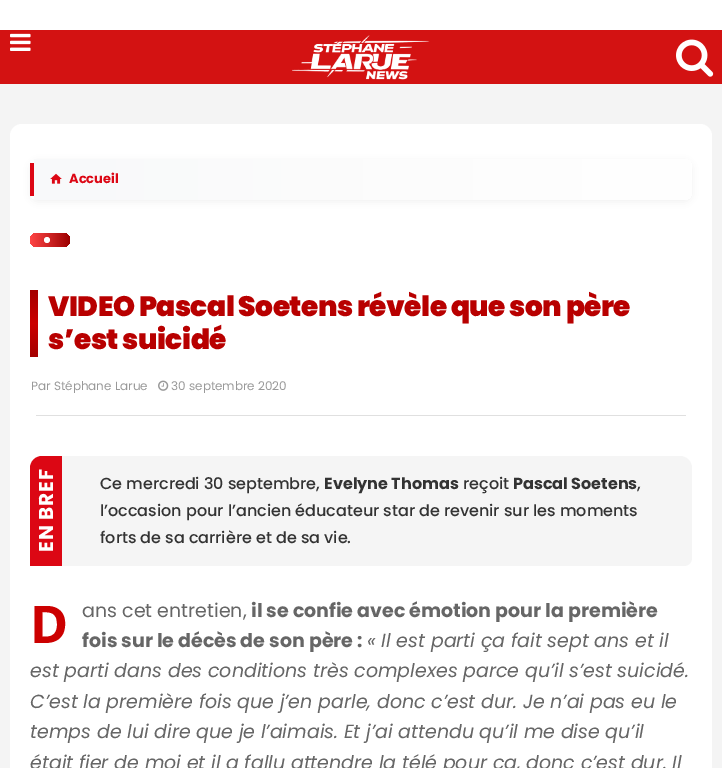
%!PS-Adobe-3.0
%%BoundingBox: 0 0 722 768
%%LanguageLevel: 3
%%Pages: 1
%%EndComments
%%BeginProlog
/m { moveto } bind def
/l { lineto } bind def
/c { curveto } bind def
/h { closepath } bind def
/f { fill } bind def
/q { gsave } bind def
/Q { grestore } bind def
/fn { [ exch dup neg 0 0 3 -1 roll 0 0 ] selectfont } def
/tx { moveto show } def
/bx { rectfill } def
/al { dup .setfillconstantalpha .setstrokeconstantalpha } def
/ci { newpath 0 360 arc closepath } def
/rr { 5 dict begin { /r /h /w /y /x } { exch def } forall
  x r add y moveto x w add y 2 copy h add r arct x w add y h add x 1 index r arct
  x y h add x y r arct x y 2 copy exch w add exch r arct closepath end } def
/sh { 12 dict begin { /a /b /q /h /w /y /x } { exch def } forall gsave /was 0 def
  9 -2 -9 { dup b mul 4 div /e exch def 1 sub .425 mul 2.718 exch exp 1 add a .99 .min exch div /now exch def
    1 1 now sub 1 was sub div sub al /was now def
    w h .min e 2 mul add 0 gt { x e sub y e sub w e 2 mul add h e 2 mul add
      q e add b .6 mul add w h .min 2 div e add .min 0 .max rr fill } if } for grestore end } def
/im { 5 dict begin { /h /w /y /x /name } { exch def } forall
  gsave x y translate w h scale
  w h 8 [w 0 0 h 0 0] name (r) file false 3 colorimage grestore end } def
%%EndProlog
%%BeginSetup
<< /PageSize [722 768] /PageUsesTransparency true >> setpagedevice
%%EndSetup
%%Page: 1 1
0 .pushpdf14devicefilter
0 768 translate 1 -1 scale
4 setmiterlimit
0.957 setgray
0 0 722 768 bx
1 setgray
0 0 722 30 bx
0.827 0.071 0.071 setrgbcolor
0 30 722 54 bx
(image0.raw) 10 33 21 18 im
(image1.raw) 292 35 138 45 im
(image2.raw) 676 39 38 38 im
1 setgray
10 124 702 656 12 rr f
0 setgray
30 161 662 41 8 4 0.05 sh
q
30 159 662 41 8 rr clip newpath
q 31 159 m 34 159 l 34 200 l 31 200 l h clip newpath
<< /ShadingType 2 /ColorSpace /DeviceRGB /Coords [-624 180 34 179] /Extend [true true] /Function << /FunctionType 2 /Domain [0 1] /C0 [0.973 0.976 0.98] /C1 [1 1 1] /N 1 >> >> shfill Q
q 34 159 m 684 159 l 688.5 159 692 162.5 692 167 c 692 192 l 692 196.5 688.5 200 684 200 c 34 200 l h clip newpath
<< /ShadingType 2 /ColorSpace /DeviceRGB /Coords [34 180 692 179] /Extend [true true] /Function << /FunctionType 2 /Domain [0 1] /C0 [0.973 0.976 0.98] /C1 [1 1 1] /N 1 >> >> shfill Q
Q
0.863 0.027 0.078 setrgbcolor
30 163 4 33 bx
(image3.raw) 50 173 12 11 im
/Poppins-Bold 13 fn
(Accueil) 69 183 tx
q 30 233 40 14 7 rr clip newpath
<< /ShadingType 2 /ColorSpace /DeviceRGB /Coords [30 240 70 240] /Extend [true true] /Function << /FunctionType 2 /Domain [0 1] /C0 [1 0.275 0.275] /C1 [0.612 0 0] /N 1 >> >> shfill Q
1 setgray
47 240 3 ci f
q 30 290 8 67 3 rr clip newpath
<< /ShadingType 2 /ColorSpace /DeviceRGB /Coords [34 290 34 357] /Extend [true true] /Function << /FunctionType 3 /Domain [0 1] /Functions [<< /FunctionType 2 /Domain [0 1] /C0 [0.643 0 0] /C1 [0.8 0 0] /N 1 >> << /FunctionType 2 /Domain [0 1] /C0 [0.8 0 0] /C1 [0.643 0 0] /N 1 >>] /Bounds [0.5] /Encode [0 1 0 1] >> >> shfill Q
/Poppins-Black 28 fn
0.722 0 0 setrgbcolor
48 316 m -0.5 0 (VIDEO Pascal Soetens révèle que son père) ashow
48 349 m -0.5 0 (s’est suicidé) ashow
0.878 setgray
36 415 650 1 bx
/Poppins-Regular 12 fn
0.6 setgray
(Par Stéphane Larue) 31 390 tx
(image4.raw) 158 380 11 11 im
(30 septembre 2020) 171 390 tx
0.961 setgray
42 456 m 680 456 l 686.5 456 692 461.5 692 468 c 692 558 l 692 562.5 688.5 566 684 566 c 30 566 l 30 468 l 30 461.5 35.5 456 42 456 c h f
0.863 0.027 0.078 setrgbcolor
42 456 m 62 456 l 62 566 l 30 566 l 30 468 l 30 461.5 35.5 456 42 456 c h f
/Poppins-Bold 20 fn
1 setgray
q 53 552 translate -90 rotate 0 0 m 0.75 0 (EN BREF) ashow Q
/Poppins-Medium 16 fn
0.2 setgray
(Ce mercredi 30 septembre,) 100 489 tx
/Poppins-Bold 16 fn
(Evelyne Thomas) 324 489 tx
/Poppins-Medium 16 fn
(reçoit) 463 489 tx
/Poppins-Bold 16 fn
(Pascal Soetens) 513 489 tx
/Poppins-Medium 16 fn
(,) 637 489 tx
(l’occasion pour l’ancien éducateur star de revenir sur les moments) 100 516 tx
(forts de sa carrière et de sa vie.) 100 543 tx
/NotoSans-Bold 52 fn
0.8 0 0 setrgbcolor
(D) 30 643 tx
/Poppins-Regular 19 fn
0.4 setgray
(ans cet entretien,) 82 617 tx
/Poppins-Bold 19 fn
(il se confie avec émotion pour la première) 251 617 tx
(fois sur le décès de son père :) 82 647 tx
/Poppins-Italic 19 fn
(« Il est parti ça fait sept ans et il) 367 647 tx
(est parti dans des conditions très complexes parce qu’il s’est suicidé.) 30 677 tx
(C’est la première fois que j’en parle, donc c’est dur. Je n’ai pas eu le) 30 708 tx
(temps de lui dire que je l’aimais. Et j’ai attendu qu’il me dise qu’il) 30 738 tx
(était fier de moi et il a fallu attendre la télé pour ça, donc c’est dur. Il) 30 769 tx
.poppdf14devicefilter showpage
%%EOF
